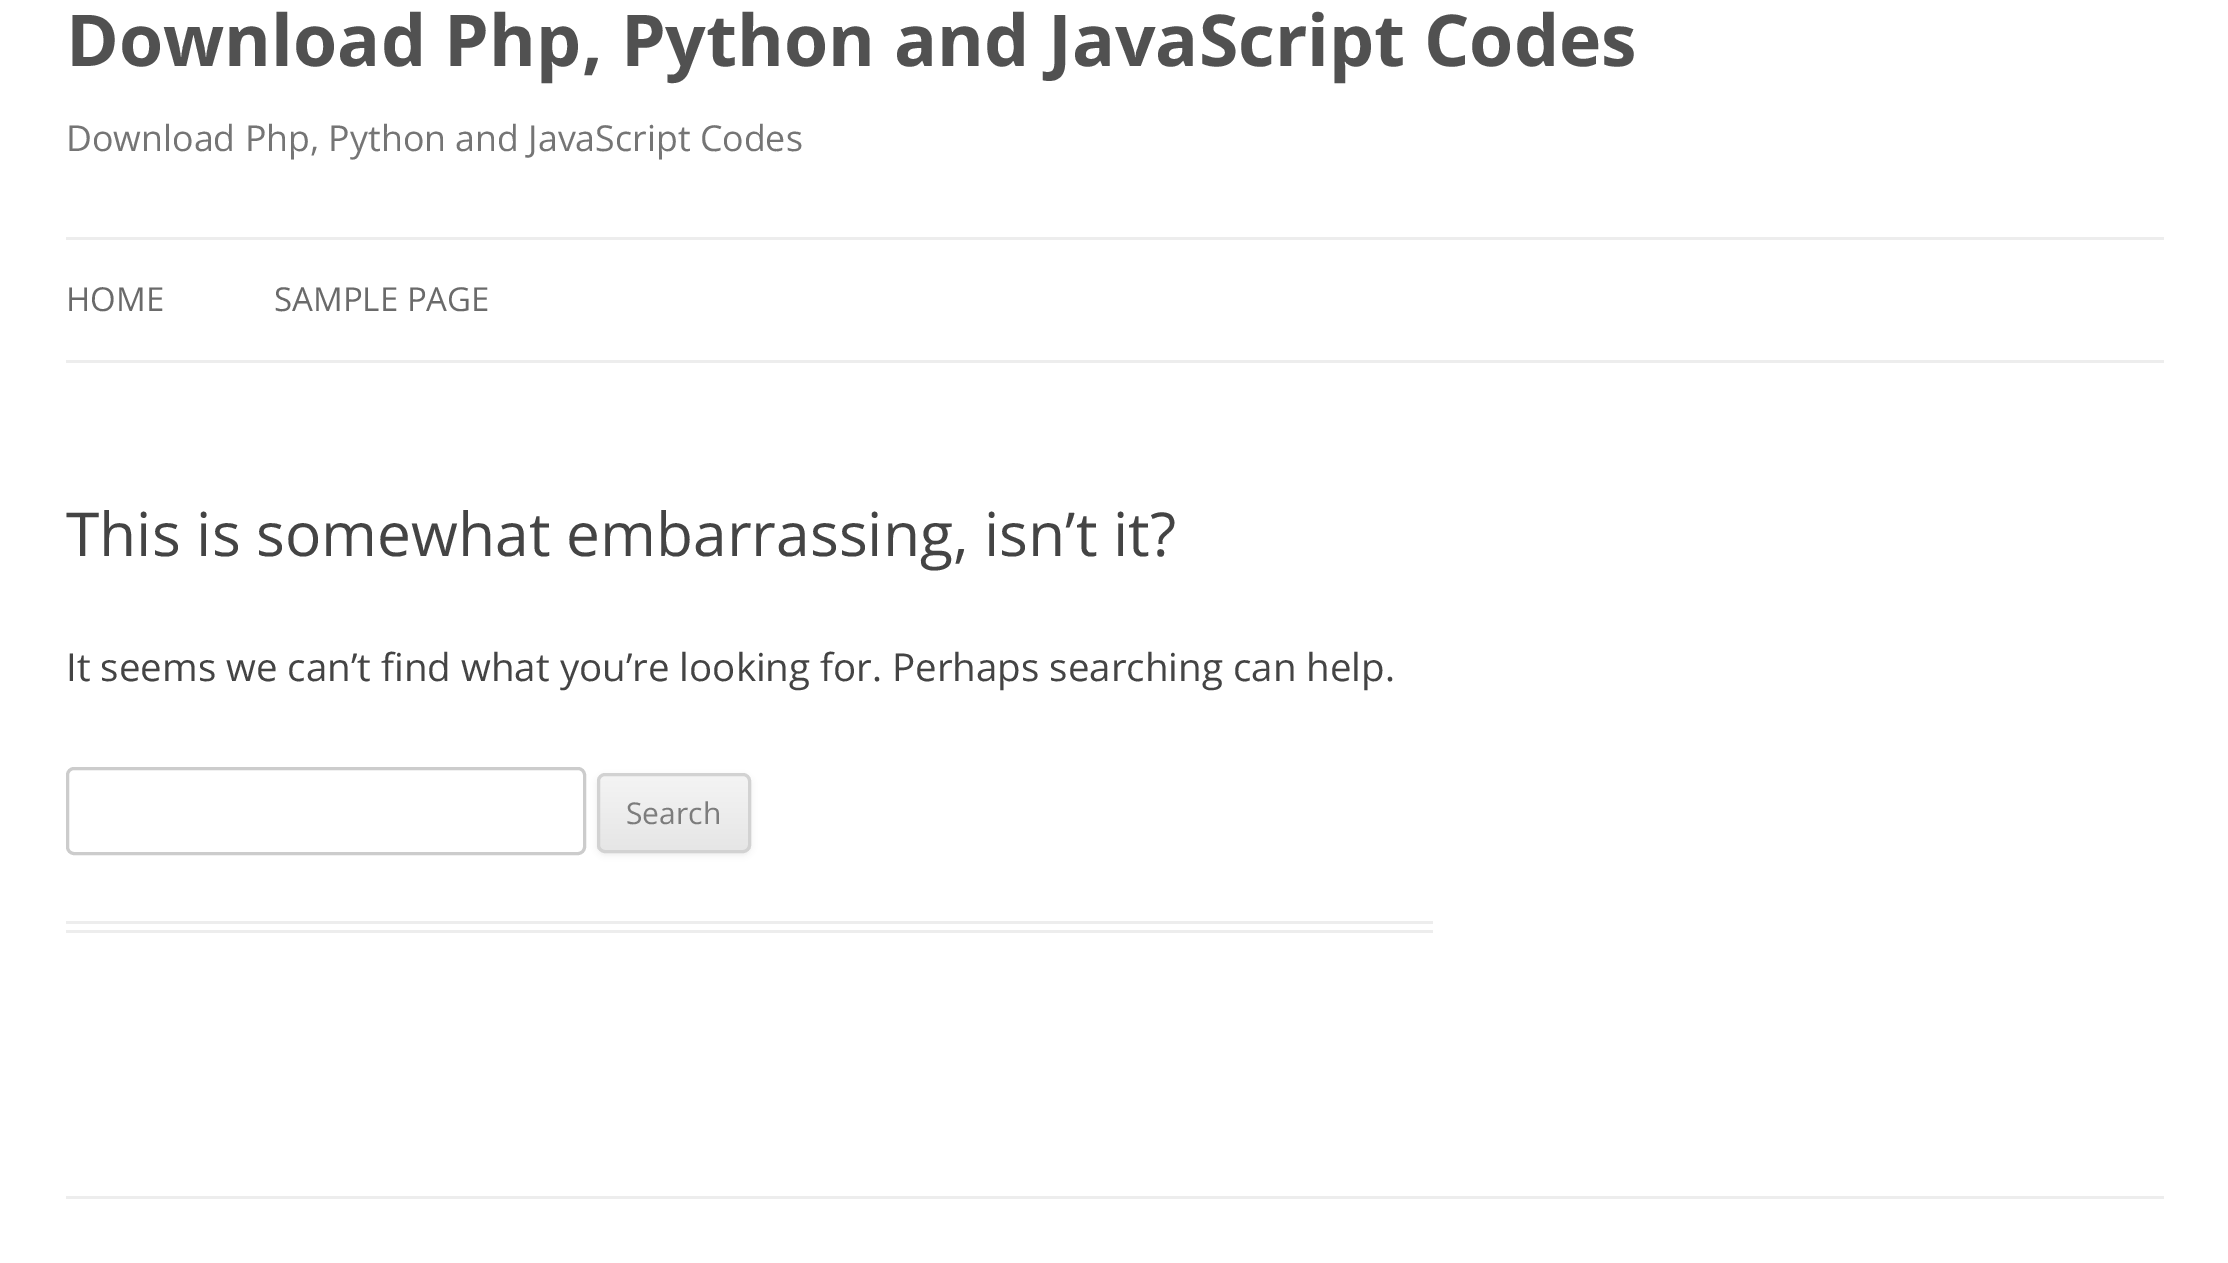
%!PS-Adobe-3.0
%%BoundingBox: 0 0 2228 1263
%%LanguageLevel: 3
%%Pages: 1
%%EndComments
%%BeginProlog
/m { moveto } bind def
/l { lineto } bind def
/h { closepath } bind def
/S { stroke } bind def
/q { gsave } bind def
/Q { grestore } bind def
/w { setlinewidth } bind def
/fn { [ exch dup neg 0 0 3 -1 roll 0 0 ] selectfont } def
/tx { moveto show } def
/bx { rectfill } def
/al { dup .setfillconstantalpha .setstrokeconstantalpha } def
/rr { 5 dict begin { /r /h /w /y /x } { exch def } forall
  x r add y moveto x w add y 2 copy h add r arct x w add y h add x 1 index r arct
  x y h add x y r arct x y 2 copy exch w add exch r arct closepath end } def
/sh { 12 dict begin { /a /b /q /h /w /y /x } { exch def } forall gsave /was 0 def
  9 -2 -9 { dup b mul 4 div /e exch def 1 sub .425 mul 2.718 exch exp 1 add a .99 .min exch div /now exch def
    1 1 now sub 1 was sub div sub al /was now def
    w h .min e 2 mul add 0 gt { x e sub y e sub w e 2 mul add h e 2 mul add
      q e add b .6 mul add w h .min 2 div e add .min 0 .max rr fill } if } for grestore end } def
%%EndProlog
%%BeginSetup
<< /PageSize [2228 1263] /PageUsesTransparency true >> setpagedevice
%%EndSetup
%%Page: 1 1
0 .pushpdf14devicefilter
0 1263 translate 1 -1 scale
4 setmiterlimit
1 setgray
0 0 2228 1263 bx
/OpenSans-Bold 71.5 fn
0.318 setgray
(Download Php, Python and JavaScript Codes) 66 66 tx
/OpenSans-Regular 35.75 fn
0.459 setgray
(Download Php, Python and JavaScript Codes) 66 151 tx
0.929 setgray
66 237 2098 3 bx
66 360 2098 3 bx
/OpenSans-Regular 33 fn
0.416 setgray
(HOME) 66 311 tx
(SAMPLE PAGE) 274 311 tx
0.929 setgray
66 921 1367 3 bx
66 930 1367 3 bx
/OpenSans-Regular 60.5 fn
0.267 setgray
(This is somewhat embarrassing, isn’t it?) 66 556 tx
/OpenSans-Regular 38.5 fn
(It seems we can’t find what you’re looking for. Perhaps searching can help.) 66 681 tx
0.8 setgray
3 w
67.5 768.5 517 85 6.5 rr S
0.251 setgray
597 776 154 79 8 3 0.1 sh
q
597 773 154 80 8 rr clip newpath
q 597 776 m 751 776 l 751 850 l 597 850 l h clip newpath
<< /ShadingType 2 /ColorSpace /DeviceRGB /Coords [674 776 674 850] /Extend [true true] /Function << /FunctionType 2 /Domain [0 1] /C0 [0.957 0.957 0.957] /C1 [0.902 0.902 0.902] /N 1 >> >> shfill Q
Q
0.824 setgray
598.5 774.5 151 77 6.5 rr S
/OpenSans-Regular 30 fn
0.486 setgray
(Search) 626 824 tx
0.929 setgray
66 1196 2098 3 bx
.poppdf14devicefilter showpage
%%EOF
